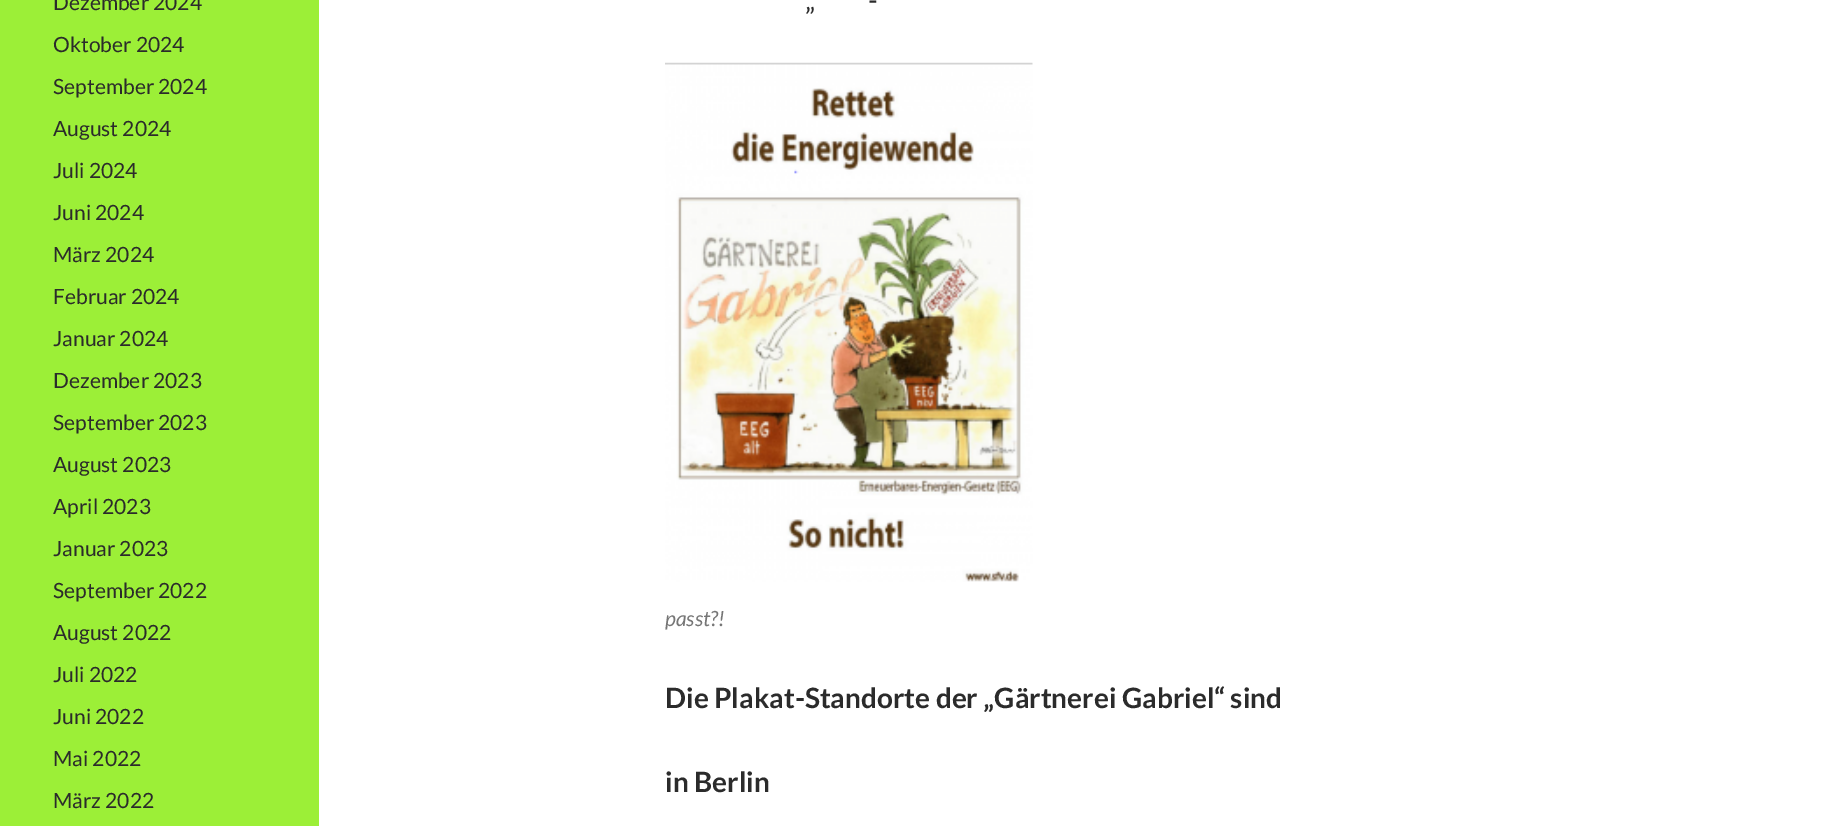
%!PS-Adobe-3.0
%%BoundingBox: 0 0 1841 826
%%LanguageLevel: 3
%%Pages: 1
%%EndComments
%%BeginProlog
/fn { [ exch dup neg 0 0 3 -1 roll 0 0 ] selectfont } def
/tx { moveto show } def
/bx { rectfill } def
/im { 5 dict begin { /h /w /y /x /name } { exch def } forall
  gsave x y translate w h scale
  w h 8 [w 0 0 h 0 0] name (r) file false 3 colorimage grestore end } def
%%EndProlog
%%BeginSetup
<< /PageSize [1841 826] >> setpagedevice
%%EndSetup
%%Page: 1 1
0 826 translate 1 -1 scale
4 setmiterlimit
1 setgray
0 0 1841 826 bx
0.612 0.937 0.216 setrgbcolor
0 0 319 826 bx
/Lato-Regular 21 fn
0.169 setgray
(Dezember 2024) 53 10 tx
(Oktober 2024) 53 52 tx
(September 2024) 53 94 tx
(August 2024) 53 136 tx
(Juli 2024) 53 178 tx
(Juni 2024) 53 220 tx
(März 2024) 53 262 tx
(Februar 2024) 53 304 tx
(Januar 2024) 53 346 tx
(Dezember 2023) 53 388 tx
(September 2023) 53 430 tx
(August 2023) 53 472 tx
(April 2023) 53 514 tx
(Januar 2023) 53 556 tx
(September 2022) 53 598 tx
(August 2022) 53 640 tx
(Juli 2022) 53 682 tx
(Juni 2022) 53 724 tx
(Mai 2022) 53 766 tx
(März 2022) 53 808 tx
/Lato-Regular 28 fn
(-) 868 10 tx
(„) 805 10 tx
(image0.raw) 665 62 368 520 im
/Lato-Italic 21 fn
0.463 setgray
(passt?!) 665 626 tx
/Lato-Bold 28 fn
0.169 setgray
(Die Plakat-Standorte der „Gärtnerei Gabriel“ sind) 665 708 tx
(in Berlin) 665 792 tx
showpage
%%EOF
